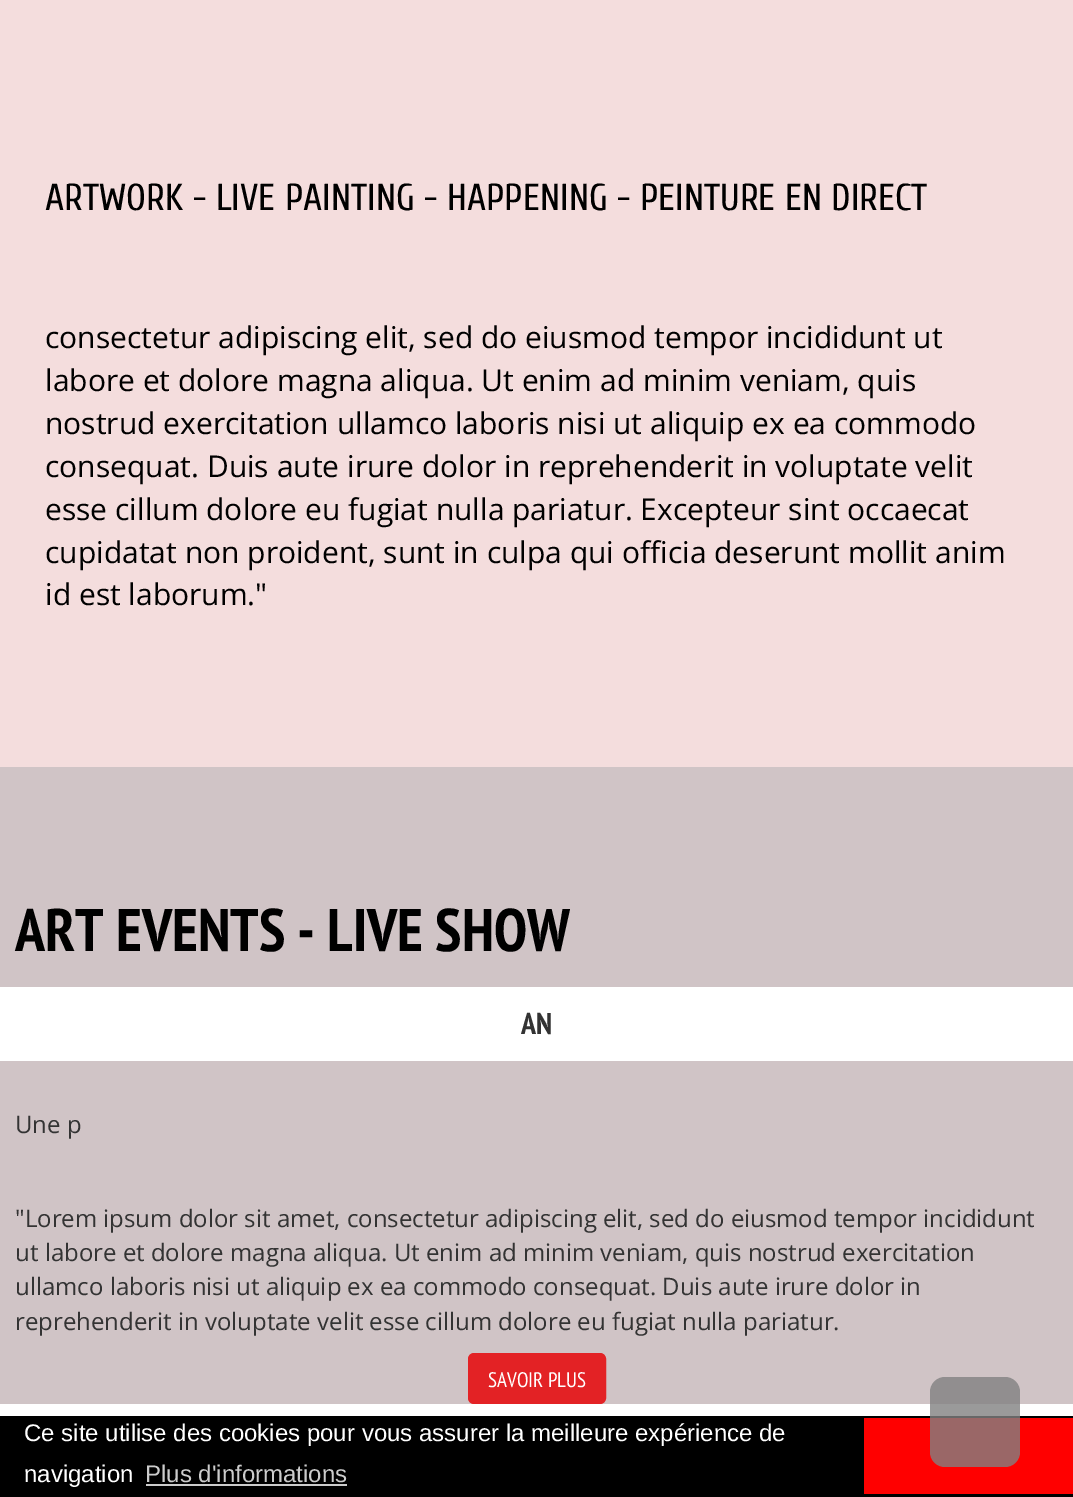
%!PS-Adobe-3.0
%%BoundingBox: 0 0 1073 1497
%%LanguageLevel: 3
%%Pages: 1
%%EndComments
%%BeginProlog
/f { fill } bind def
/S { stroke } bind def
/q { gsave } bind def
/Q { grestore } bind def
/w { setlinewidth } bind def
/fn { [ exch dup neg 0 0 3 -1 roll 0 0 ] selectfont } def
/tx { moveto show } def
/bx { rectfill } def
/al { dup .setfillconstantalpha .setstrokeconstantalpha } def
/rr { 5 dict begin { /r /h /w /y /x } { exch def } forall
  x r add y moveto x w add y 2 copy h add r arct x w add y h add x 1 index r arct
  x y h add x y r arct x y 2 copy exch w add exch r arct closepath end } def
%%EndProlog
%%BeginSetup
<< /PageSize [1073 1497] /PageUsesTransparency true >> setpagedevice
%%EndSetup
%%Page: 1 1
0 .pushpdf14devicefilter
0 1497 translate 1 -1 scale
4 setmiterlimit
0.957 0.867 0.867 setrgbcolor
0 0 1073 1497 bx
/Cuprum-Regular 37.5 fn
0 setgray
(ARTWORK - LIVE PAINTING - HAPPENING - PEINTURE EN DIRECT) 45 210 tx
/OpenSans-Regular 30 fn
(consectetur adipiscing elit, sed do eiusmod tempor incididunt ut) 45 348 tx
(labore et dolore magna aliqua. Ut enim ad minim veniam, quis) 45 391 tx
(nostrud exercitation ullamco laboris nisi ut aliquip ex ea commodo) 45 434 tx
(consequat. Duis aute irure dolor in reprehenderit in voluptate velit) 45 477 tx
(esse cillum dolore eu fugiat nulla pariatur. Excepteur sint occaecat) 45 520 tx
(cupidatat non proident, sunt in culpa qui officia deserunt mollit anim) 45 563 tx
(id est laborum.") 45 605 tx
0.816 0.769 0.776 setrgbcolor
0 767 1073 637 bx
/PTSansNarrow-Bold 60 fn
0 setgray
(ART EVENTS - LIVE SHOW) 15 951 tx
1 setgray
0 987 1073 74 bx
/PTSansNarrow-Bold 30 fn
0.2 setgray
(AN) 521 1034 tx
/OpenSans-Regular 24 fn
(Une p) 15 1133 tx
("Lorem ipsum dolor sit amet, consectetur adipiscing elit, sed do eiusmod tempor incididunt) 15 1227 tx
(ut labore et dolore magna aliqua. Ut enim ad minim veniam, quis nostrud exercitation) 15 1261 tx
(ullamco laboris nisi ut aliquip ex ea commodo consequat. Duis aute irure dolor in) 15 1295 tx
(reprehenderit in voluptate velit esse cillum dolore eu fugiat nulla pariatur.) 15 1330 tx
0.89 0.133 0.145 setrgbcolor
469 1354 136 49 5 rr q f Q
2 w
S
/PTSansNarrow-Regular 21 fn
1 setgray
(SAVOIR PLUS) 488 1387 tx
0 1404 1073 12 bx
0 setgray
0 1416 1073 81 bx
/LiberationSans-Regular 24 fn
1 setgray
(Ce site utilise des cookies pour vous assurer la meilleure expérience de) 24 1441 tx
(navigation) 24 1482 tx
0.8 setgray
(Plus d'informations) 145 1482 tx
146 1484 201 2 bx
1 0 0 setrgbcolor
864 1418 209 76 bx
0.8 al
0.506 setgray
930 1377 90 90 15 rr f
.poppdf14devicefilter showpage
%%EOF
